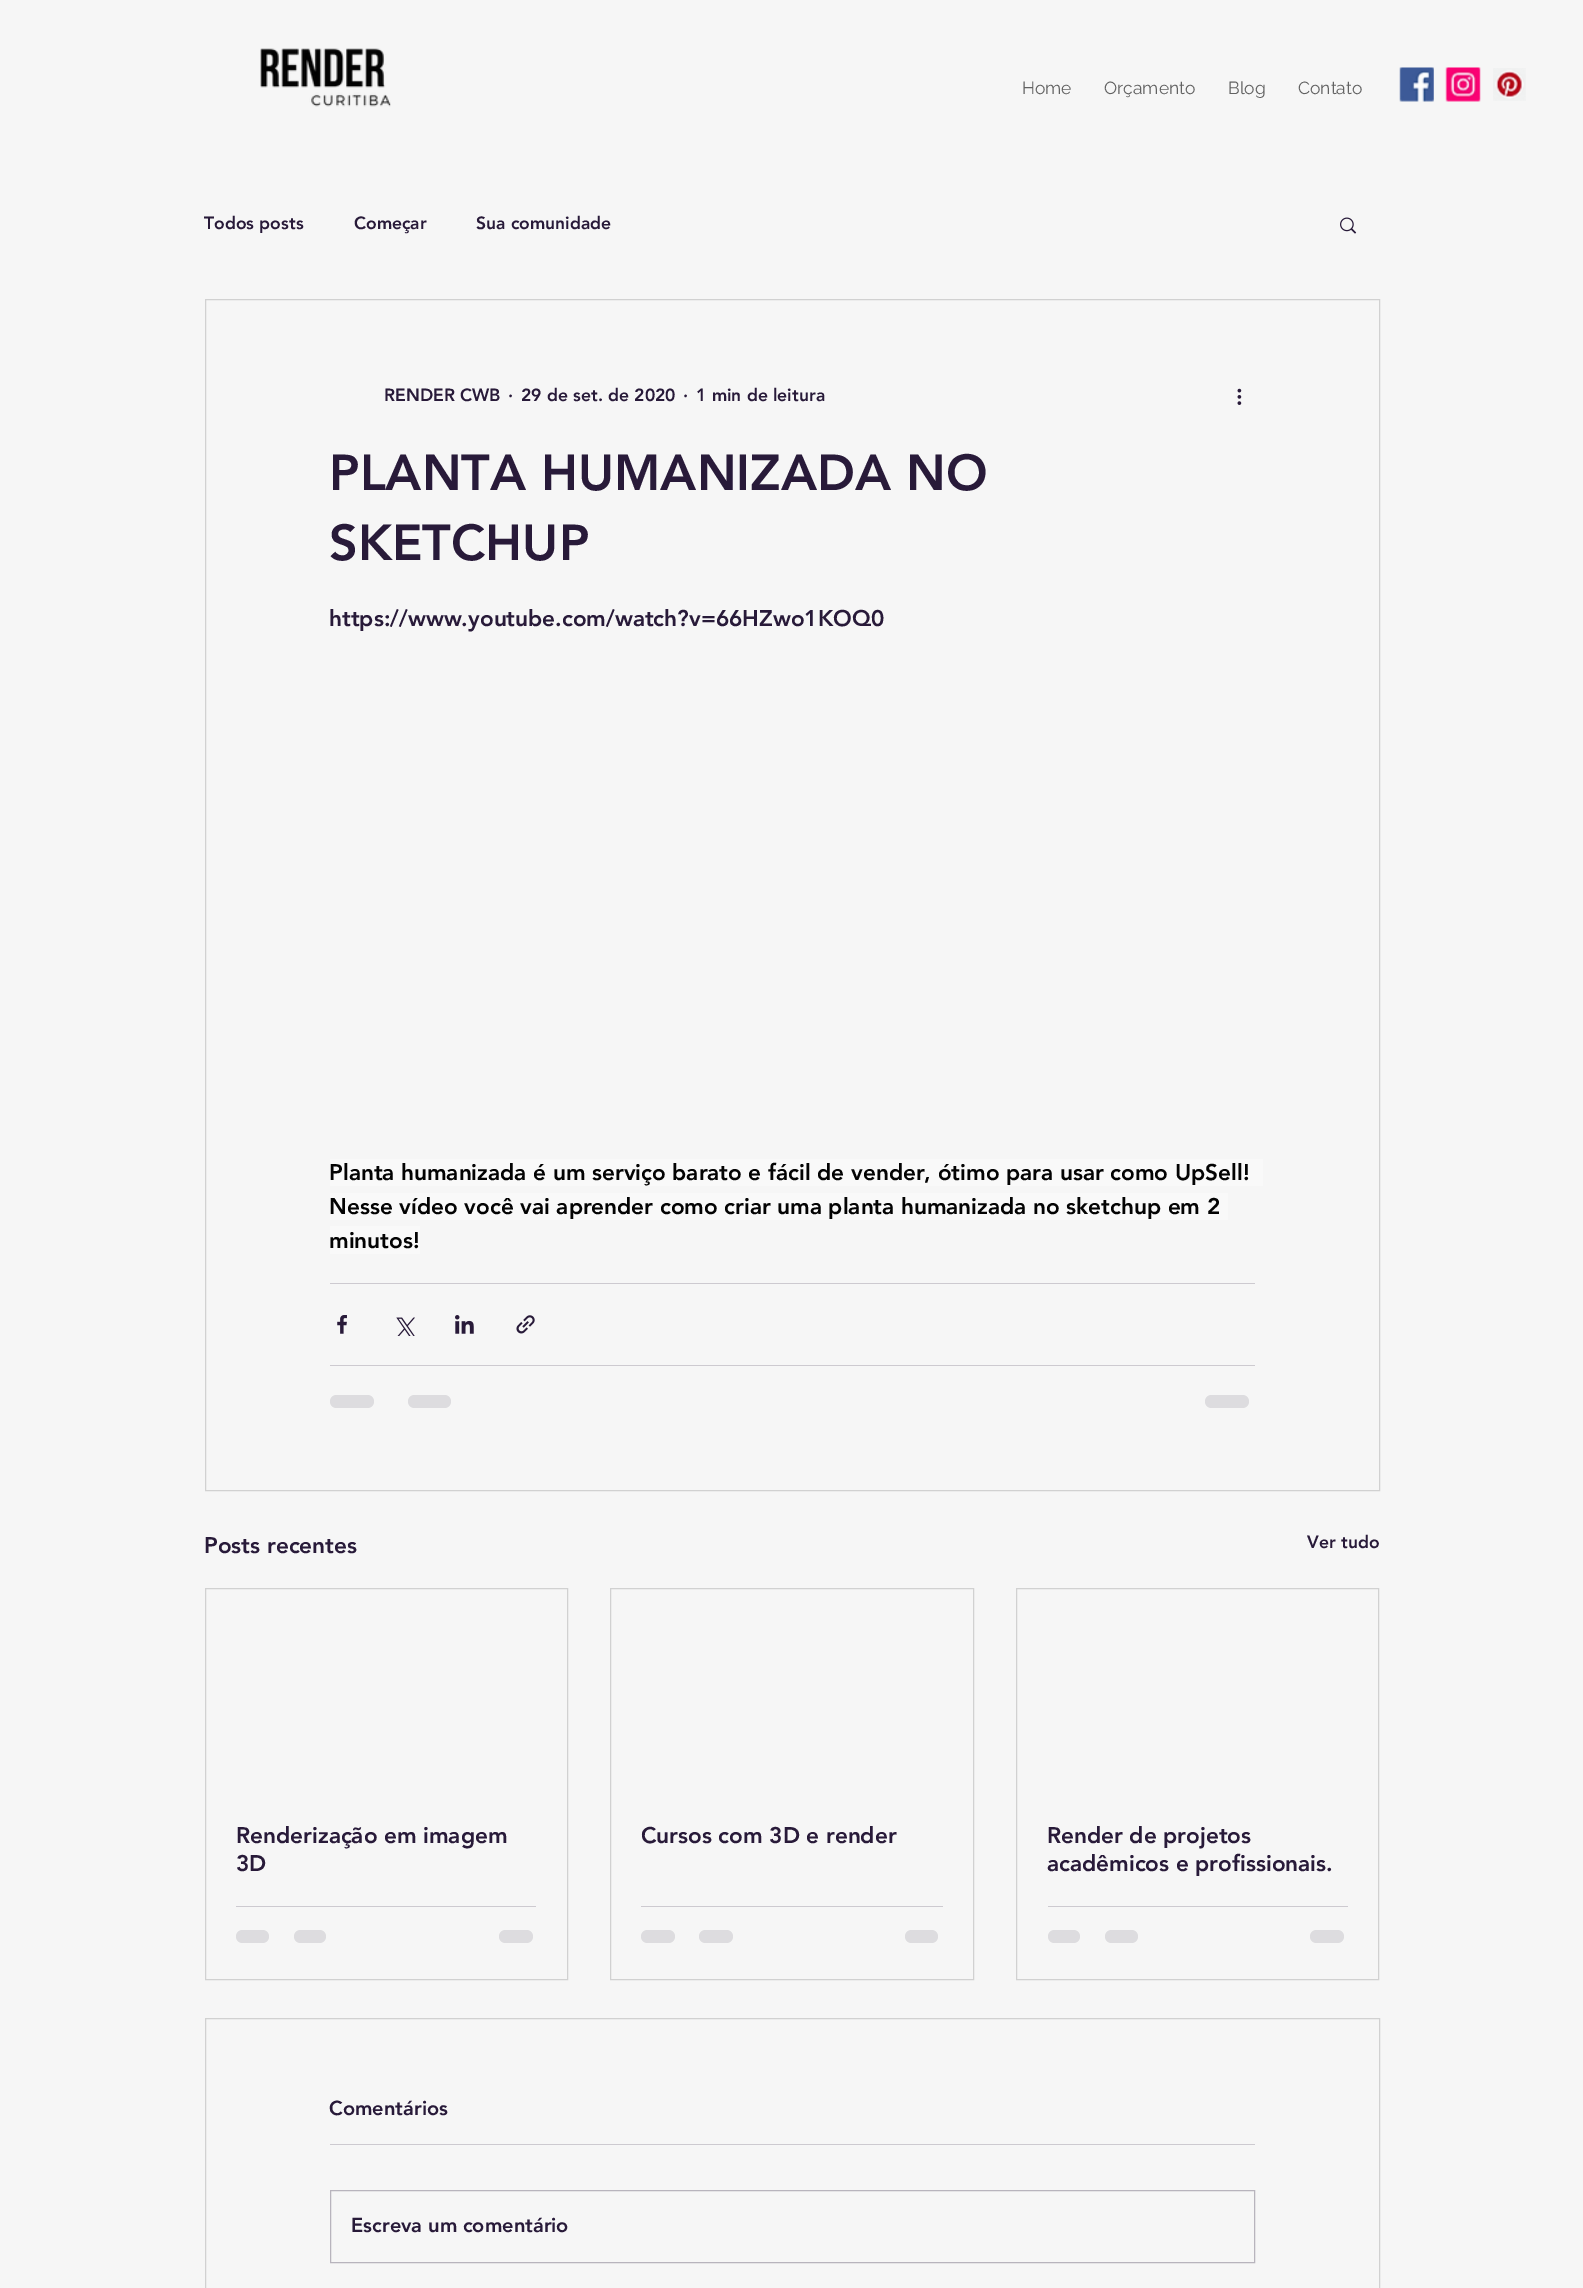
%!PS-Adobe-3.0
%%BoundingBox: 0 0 1583 2288
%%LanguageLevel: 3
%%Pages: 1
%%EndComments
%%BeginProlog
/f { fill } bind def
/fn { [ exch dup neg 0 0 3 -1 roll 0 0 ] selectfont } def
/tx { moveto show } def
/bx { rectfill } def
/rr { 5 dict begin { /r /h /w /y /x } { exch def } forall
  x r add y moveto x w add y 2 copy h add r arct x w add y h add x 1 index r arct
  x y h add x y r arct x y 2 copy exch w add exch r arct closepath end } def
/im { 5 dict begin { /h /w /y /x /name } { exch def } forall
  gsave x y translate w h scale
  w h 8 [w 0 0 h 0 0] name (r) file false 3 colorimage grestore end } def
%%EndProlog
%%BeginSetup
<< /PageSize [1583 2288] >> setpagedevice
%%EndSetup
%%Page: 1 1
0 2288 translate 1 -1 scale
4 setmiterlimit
0.965 setgray
0 0 1583 2288 bx
(image0.raw) 260 48 131 59 im
(image1.raw) 1399 67 35 35 im
(image2.raw) 1445 67 36 35 im
(image3.raw) 1493 68 33 33 im
/Raleway-Regular 17.5 fn
0.384 setgray
(Home) 1022 94 tx
(Orçamento) 1104 94 tx
(Blog) 1228 94 tx
(Contato) 1298 94 tx
/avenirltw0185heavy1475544-Black 17.5 fn
0.157 0.102 0.224 setrgbcolor
(Todos posts) 204 229 tx
(Começar) 354 229 tx
(Sua comunidade) 476 229 tx
(image4.raw) 1340 217 17 17 im
0.82 setgray
205.5 299.5 1174 1191 rectstroke
0.157 0.102 0.224 setrgbcolor
(RENDER CWB) 384 401 tx
(·) 508 401 tx
(29 de set. de 2020) 521 401 tx
(·) 683 401 tx
(1 min de leitura) 696 401 tx
(image5.raw) 1237 388 5 17 im
/avenirltw0185heavy1475544-Black 50 fn
(PLANTA HUMANIZADA NO) 329 490 tx
(SKETCHUP) 329 560 tx
/avenirltw0185heavy1475544-Black 22.5 fn
(https://www.youtube.com/watch?v=66HZwo1KOQ0) 329 626 tx
0.976 setgray
330 1159 933 27 bx
0.012 setgray
(Planta humanizada é um serviço barato e fácil de vender, ótimo para usar como UpSell!) 329 1180 tx
0.976 setgray
330 1193 898 27 bx
0.012 setgray
(Nesse vídeo você vai aprender como criar uma planta humanizada no sketchup em 2) 329 1214 tx
0.976 setgray
330 1226 90 28 bx
0.012 setgray
(minutos!) 329 1248 tx
0.804 0.792 0.816 setrgbcolor
330 1283 925 1 bx
(image6.raw) 337 1315 10 19 im
(image7.raw) 396 1317 19 19 im
(image8.raw) 455 1315 19 19 im
(image9.raw) 516 1315 19 19 im
330 1365 925 1 bx
0.867 0.863 0.875 setrgbcolor
330 1395 44 13 6.5 rr f
408 1395 43 13 6.5 rr f
1205 1395 44 13 6.5 rr f
0.157 0.102 0.224 setrgbcolor
(Posts recentes) 204 1553 tx
/avenirltw0185heavy1475544-Black 17.5 fn
(Ver tudo) 1307 1548 tx
0.82 setgray
205.5 1588.5 362 391 rectstroke
/avenirltw0185heavy1475544-Black 22.5 fn
0.157 0.102 0.224 setrgbcolor
(Renderização em imagem) 236 1843 tx
(3D) 236 1871 tx
0.804 0.792 0.816 setrgbcolor
236 1906 300 1 bx
0.867 0.863 0.875 setrgbcolor
236 1930 33 13 6.5 rr f
294 1930 32 13 6.5 rr f
499 1930 34 13 6.5 rr f
0.82 setgray
610.5 1588.5 363 391 rectstroke
0.157 0.102 0.224 setrgbcolor
(Cursos com 3D e render) 641 1843 tx
0.804 0.792 0.816 setrgbcolor
641 1906 302 1 bx
0.867 0.863 0.875 setrgbcolor
641 1930 34 13 6.5 rr f
699 1930 34 13 6.5 rr f
905 1930 33 13 6.5 rr f
0.82 setgray
1016.5 1588.5 362 391 rectstroke
0.157 0.102 0.224 setrgbcolor
(Render de projetos) 1047 1843 tx
(acadêmicos e profissionais.) 1047 1871 tx
0.804 0.792 0.816 setrgbcolor
1048 1906 300 1 bx
0.867 0.863 0.875 setrgbcolor
1048 1930 32 13 6.5 rr f
1105 1930 33 13 6.5 rr f
1310 1930 34 13 6.5 rr f
0.82 setgray
205.5 2018.5 1174 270 rectstroke
/avenirltw0185heavy1475544-Black 20 fn
0.157 0.102 0.224 setrgbcolor
(Comentários) 329 2115 tx
0.804 0.792 0.816 setrgbcolor
330 2144 925 1 bx
0.722 0.706 0.741 setrgbcolor
330.5 2190.5 924 72 rectstroke
0.157 0.102 0.224 setrgbcolor
(Escreva um comentário) 351 2232 tx
showpage
%%EOF
